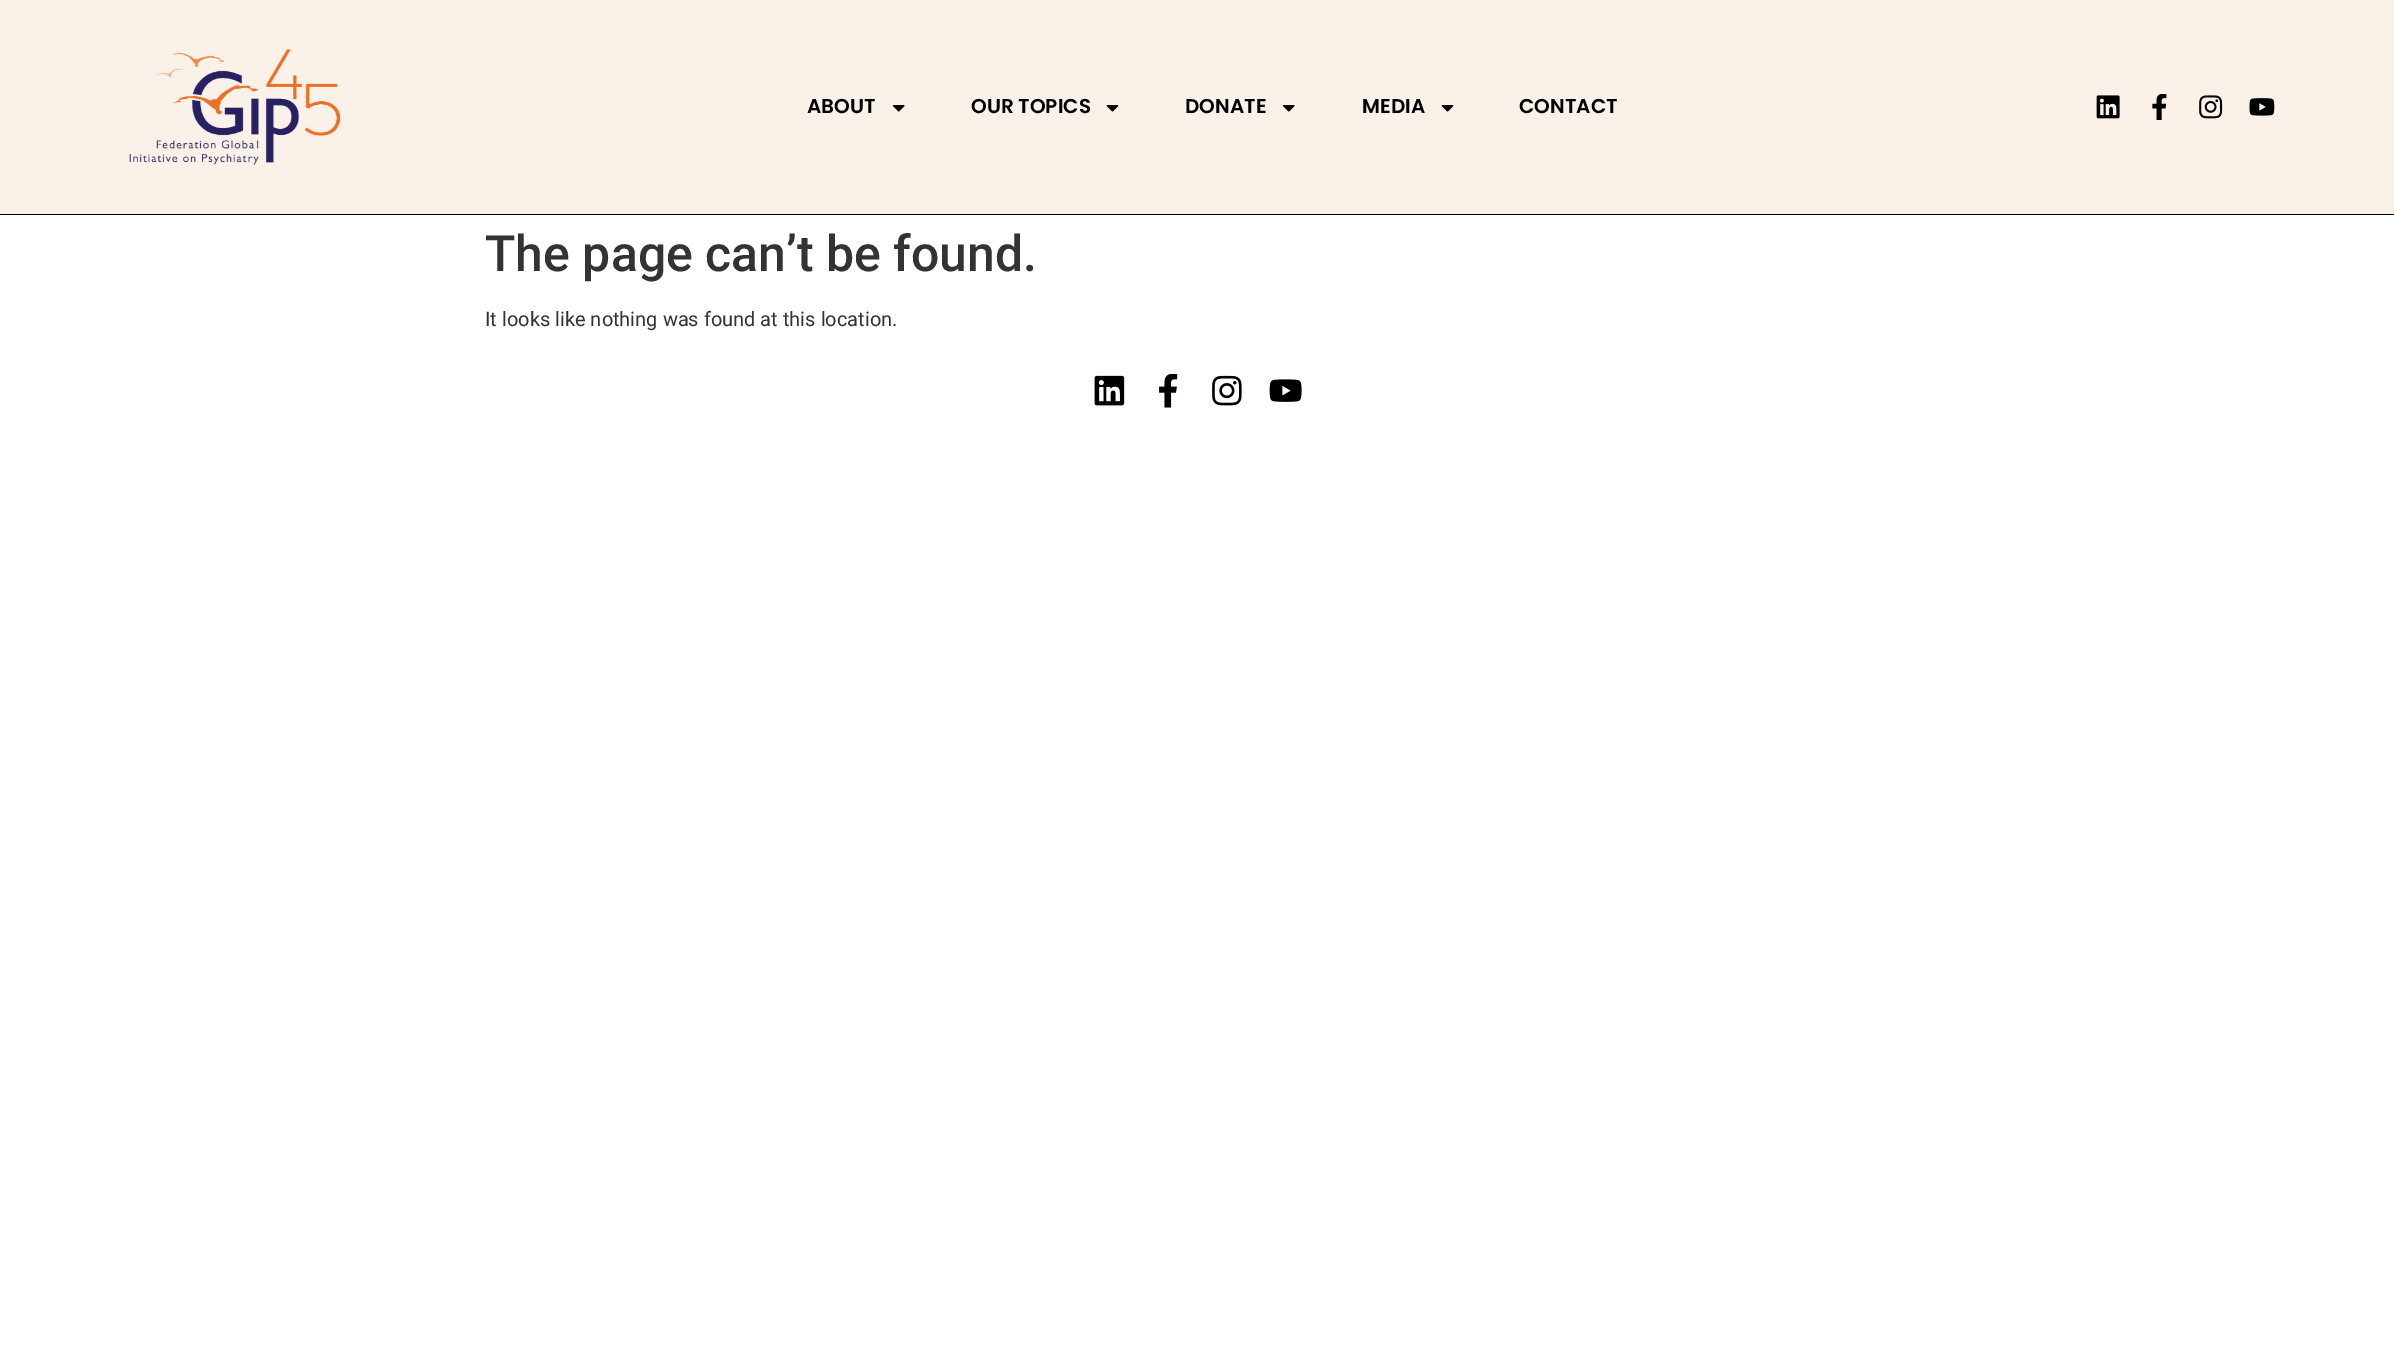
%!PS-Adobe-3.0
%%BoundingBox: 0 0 2394 1345
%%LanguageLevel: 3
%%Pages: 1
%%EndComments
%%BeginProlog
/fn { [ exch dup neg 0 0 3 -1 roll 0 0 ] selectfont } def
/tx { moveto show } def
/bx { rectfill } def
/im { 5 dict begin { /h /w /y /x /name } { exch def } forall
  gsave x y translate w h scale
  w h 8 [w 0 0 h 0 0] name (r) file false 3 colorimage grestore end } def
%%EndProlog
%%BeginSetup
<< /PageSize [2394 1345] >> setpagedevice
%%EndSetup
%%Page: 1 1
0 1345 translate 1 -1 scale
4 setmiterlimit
1 setgray
0 0 2394 1345 bx
0.98 0.949 0.91 setrgbcolor
0 0 2394 214 bx
0 setgray
0 214 2394 1 bx
(image0.raw) 129 49 212 116 im
/Poppins-SemiBold 20 fn
(ABOUT) 807 113 tx
(image1.raw) 893 105 12 7 im
(OUR TOPICS) 971 113 tx
(image2.raw) 1106 105 13 7 im
(DONATE) 1185 113 tx
(image1.raw) 1283 105 12 7 im
(MEDIA) 1362 113 tx
(image2.raw) 1441 105 13 7 im
(CONTACT) 1519 113 tx
(image3.raw) 2096 95 24 24 im
(image4.raw) 2152 94 15 26 im
(image5.raw) 2199 95 24 24 im
(image6.raw) 2249 98 26 18 im
/Roboto-Medium 50 fn
0.2 setgray
(The page can’t be found.) 485 271 tx
/Roboto-Regular 20 fn
(It looks like nothing was found at this location.) 485 326 tx
(image7.raw) 1094 375 31 31 im
(image8.raw) 1159 374 19 34 im
(image9.raw) 1212 375 30 31 im
(image10.raw) 1269 379 33 23 im
showpage
%%EOF
